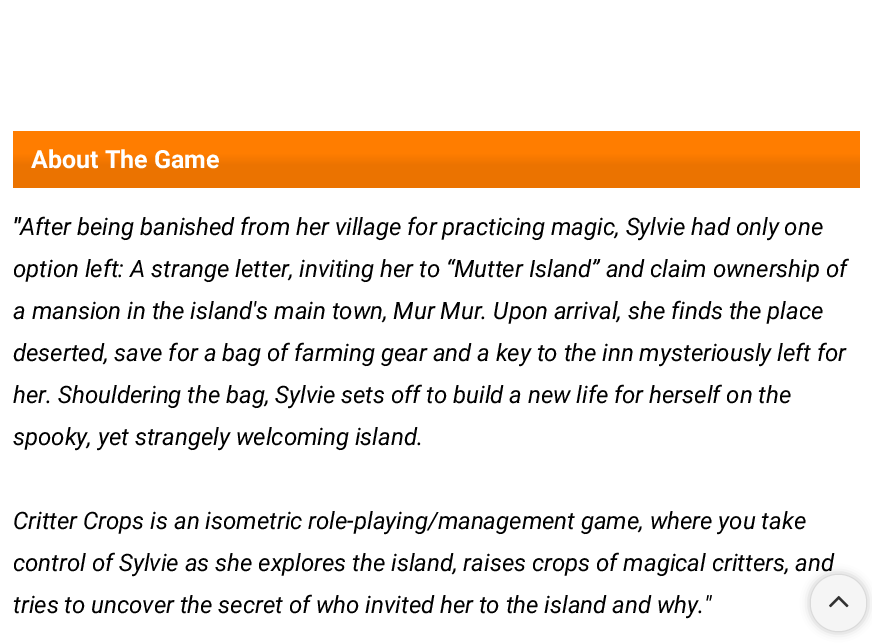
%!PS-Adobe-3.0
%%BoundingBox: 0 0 872 643
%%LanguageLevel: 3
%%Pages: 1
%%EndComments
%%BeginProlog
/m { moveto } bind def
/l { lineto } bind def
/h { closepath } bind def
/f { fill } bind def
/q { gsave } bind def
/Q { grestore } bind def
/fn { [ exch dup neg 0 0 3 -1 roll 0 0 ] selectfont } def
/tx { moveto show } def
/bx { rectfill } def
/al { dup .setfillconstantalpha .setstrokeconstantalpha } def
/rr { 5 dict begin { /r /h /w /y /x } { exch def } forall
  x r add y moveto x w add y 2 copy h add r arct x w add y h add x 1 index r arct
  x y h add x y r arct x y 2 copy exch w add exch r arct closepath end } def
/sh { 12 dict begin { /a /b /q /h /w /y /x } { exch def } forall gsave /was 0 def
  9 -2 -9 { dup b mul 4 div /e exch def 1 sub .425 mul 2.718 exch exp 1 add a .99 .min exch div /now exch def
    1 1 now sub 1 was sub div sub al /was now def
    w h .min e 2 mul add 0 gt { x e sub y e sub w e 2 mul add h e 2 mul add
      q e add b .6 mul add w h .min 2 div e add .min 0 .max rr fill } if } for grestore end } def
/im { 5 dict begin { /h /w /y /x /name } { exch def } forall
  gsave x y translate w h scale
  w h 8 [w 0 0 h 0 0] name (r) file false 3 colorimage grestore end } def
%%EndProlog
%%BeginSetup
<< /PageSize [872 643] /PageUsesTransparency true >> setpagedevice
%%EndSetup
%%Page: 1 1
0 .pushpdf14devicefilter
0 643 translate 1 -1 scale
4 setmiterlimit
1 setgray
0 0 872 643 bx
q 13 131 m 860 131 l 860 188 l 13 188 l h clip newpath
<< /ShadingType 2 /ColorSpace /DeviceRGB /Coords [436 131 436 188] /Extend [true true] /Function << /FunctionType 3 /Domain [0 1] /Functions [<< /FunctionType 2 /Domain [0 1] /C0 [1 0.49 0] /C1 [1 0.49 0] /N 1 >> << /FunctionType 2 /Domain [0 1] /C0 [1 0.49 0] /C1 [0.922 0.451 0] /N 1 >> << /FunctionType 2 /Domain [0 1] /C0 [0.922 0.451 0] /C1 [0.922 0.451 0] /N 1 >>] /Bounds [0.4 0.6] /Encode [0 1 0 1 0 1] >> >> shfill Q
/Roboto-Bold 25 fn
(About The Game) 31 168 tx
/Roboto-BoldItalic 24 fn
0 setgray
(") 13 235 tx
/Roboto-Italic 24 fn
(After being banished from her village for practicing magic, Sylvie had only one) 20 235 tx
(option left: A strange letter, inviting her to “Mutter Island” and claim ownership of) 13 277 tx
(a mansion in the island's main town, Mur Mur. Upon arrival, she finds the place) 13 319 tx
(deserted, save for a bag of farming gear and a key to the inn mysteriously left for) 13 361 tx
(her. Shouldering the bag, Sylvie sets off to build a new life for herself on the) 13 403 tx
(spooky, yet strangely welcoming island.) 13 445 tx
(Critter Crops is an isometric role-playing/management game, where you take) 13 529 tx
(control of Sylvie as she explores the island, raises crops of magical critters, and) 13 571 tx
(tries to uncover the secret of who invited her to the island and why.") 13 613 tx
811 575 55 56 27.5 5 0.28 sh
0.961 setgray
811 575 55 56 27.5 rr f
(image0.raw) 829 595 20 13 im
.poppdf14devicefilter showpage
%%EOF
